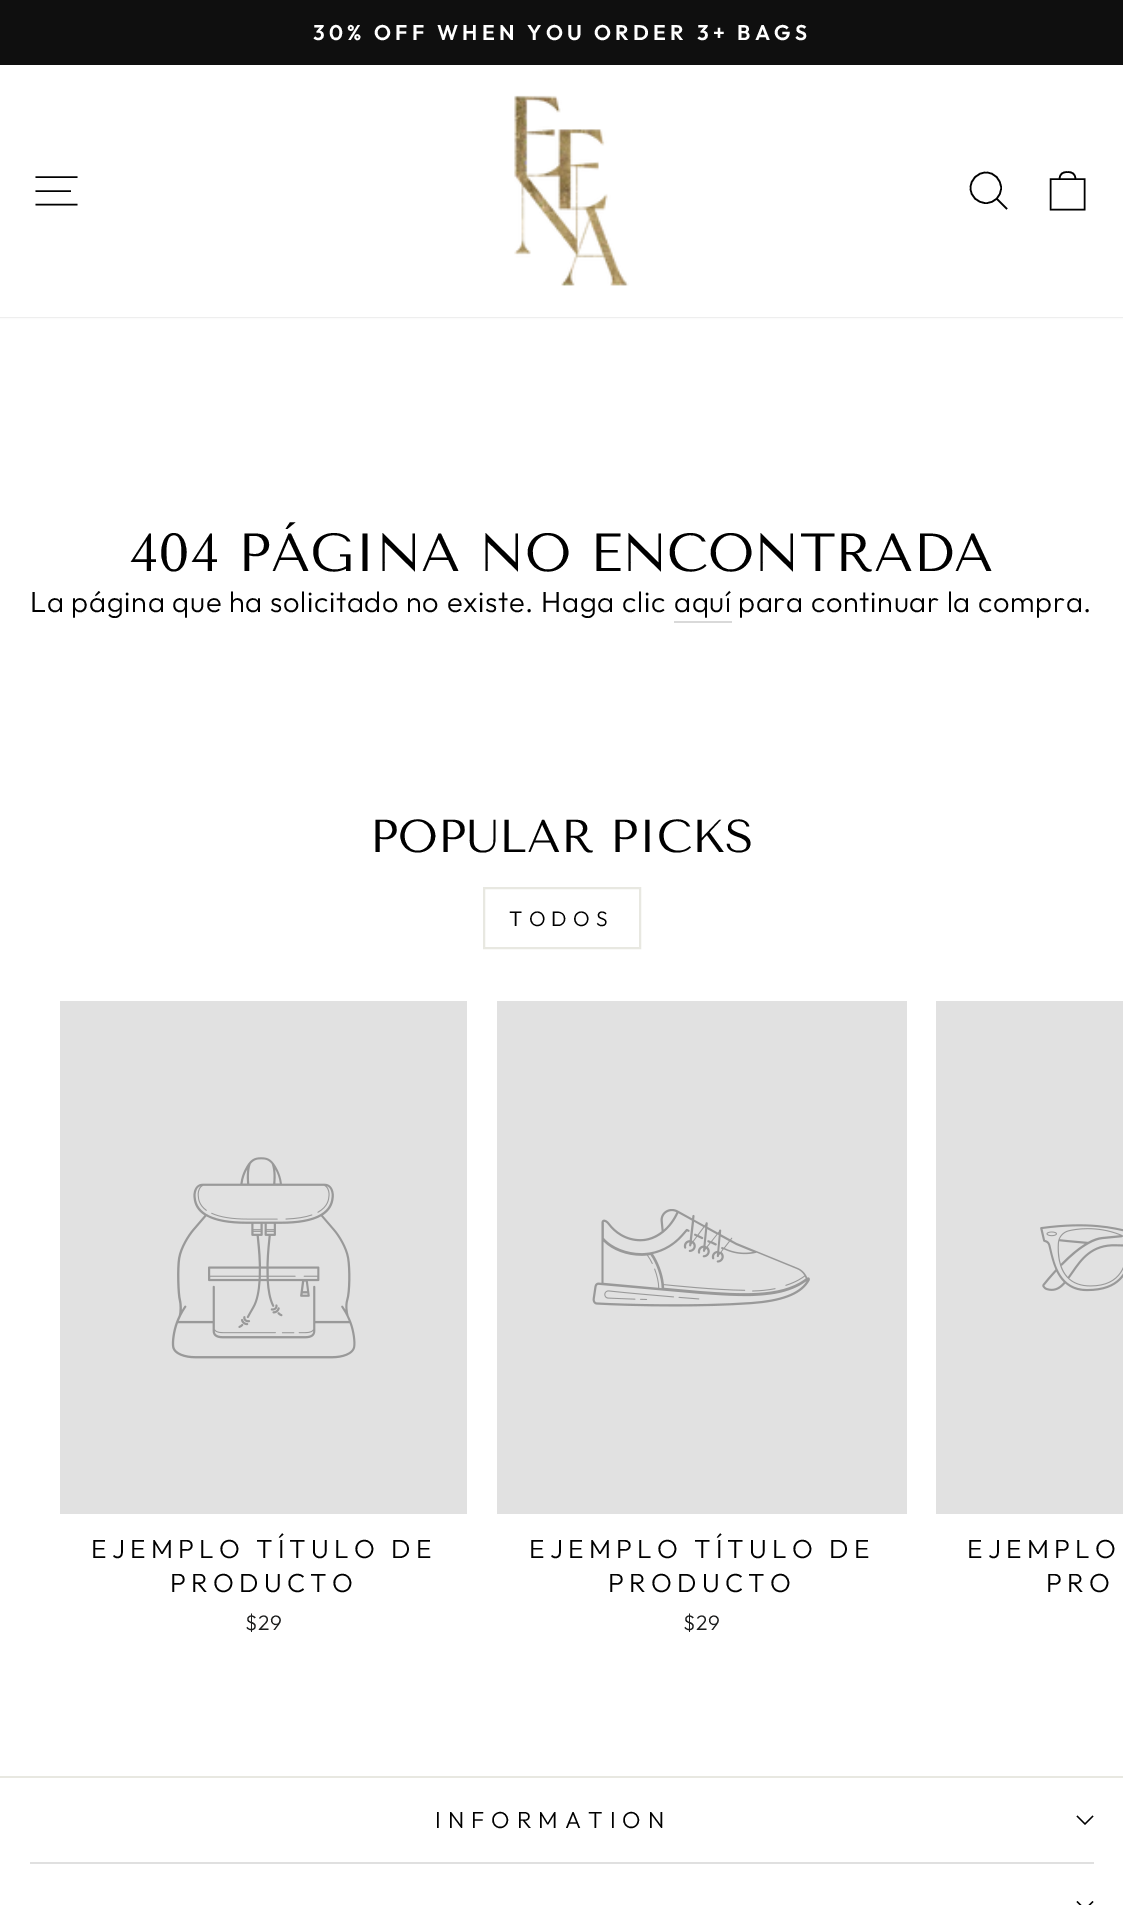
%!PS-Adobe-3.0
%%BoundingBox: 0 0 1123 1905
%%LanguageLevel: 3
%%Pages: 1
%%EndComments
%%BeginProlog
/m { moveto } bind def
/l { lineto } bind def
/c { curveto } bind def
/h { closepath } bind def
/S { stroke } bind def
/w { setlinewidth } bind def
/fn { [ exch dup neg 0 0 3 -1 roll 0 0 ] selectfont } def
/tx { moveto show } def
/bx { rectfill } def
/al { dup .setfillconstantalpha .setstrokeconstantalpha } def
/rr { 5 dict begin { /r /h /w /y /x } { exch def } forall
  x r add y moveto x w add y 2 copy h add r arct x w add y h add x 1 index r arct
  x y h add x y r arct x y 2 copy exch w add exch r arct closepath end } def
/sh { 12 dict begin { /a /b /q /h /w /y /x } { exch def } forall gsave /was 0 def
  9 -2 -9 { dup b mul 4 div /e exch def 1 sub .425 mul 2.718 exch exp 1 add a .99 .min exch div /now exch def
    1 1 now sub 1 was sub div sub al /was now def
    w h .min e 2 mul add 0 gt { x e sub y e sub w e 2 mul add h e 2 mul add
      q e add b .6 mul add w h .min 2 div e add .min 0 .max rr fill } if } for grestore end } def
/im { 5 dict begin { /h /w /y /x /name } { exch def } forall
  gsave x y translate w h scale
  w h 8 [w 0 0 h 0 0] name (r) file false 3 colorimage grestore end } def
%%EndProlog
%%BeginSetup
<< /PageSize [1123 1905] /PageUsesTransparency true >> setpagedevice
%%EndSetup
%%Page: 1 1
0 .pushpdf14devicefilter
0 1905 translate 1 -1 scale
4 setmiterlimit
1 setgray
0 0 1123 1905 bx
0.059 setgray
0 0 1123 65 bx
/Outfit-SemiBold 21.25 fn
1 setgray
313 40 m 4.25 0 (30% OFF WHEN YOU ORDER 3+ BAGS) ashow
0 setgray
0 65 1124 252 0 1 0.2 sh
1 setgray
0 65 1123 252 bx
0 setgray
1.6 w
35.5 177 m 77.5 177 l 35.5 191 m 71 191 l 35.5 204.5 m 77.5 204.5 l S
(image0.raw) 514 95 115 191 im
1001 188 m 1001 196.5 994.5 203 986 203 c 977.5 203 970.5 196.5 970.5 188 c 970.5 179.5 977.5 172.5 986 172.5 c 994.5 172.5 1001 179.5 1001 188 c h 1007 209 m 997 199 l S
1050.5 179 m 1084.5 179 l 1084.5 209.5 l 1050.5 209.5 l h 1059.5 179.5 m 1059.5 173.5 1063 172 1067.5 172 c 1072 172 1075.5 173.5 1075.5 179.5 c S
/TenorSans-Regular 53.5 fn
(404 PÁGINA NO ENCONTRADA) 129 571 tx
/Outfit-Light 29 fn
30 612 m 0.7 0 (La página que ha solicitado no existe. Haga clic) ashow
0.851 setgray
674 621 58 2 bx
0 setgray
674 612 m 0.7 0 (aquí) ashow
738 612 m 0.7 0 (para continuar la compra.) ashow
/TenorSans-Regular 46 fn
(POPULAR PICKS) 370 852 tx
0.91 0.91 0.882 setrgbcolor
2 w
484 888 156 60 rectstroke
/Outfit-Light 21 fn
0 setgray
509 926 m 6.25 0 (TODOS) ashow
0.882 setgray
60 1001 407 513 bx
(image1.raw) 171 1157 185 202 im
/Outfit-Light 26.25 fn
0 setgray
91 1558 m 5.25 0 (EJEMPLO TÍTULO DE) ashow
170 1592 m 5.25 0 (PRODUCTO) ashow
/Outfit-Light 21 fn
0.11 0.114 0.114 setrgbcolor
245 1630 m 0.7 0 ($29) ashow
0.882 setgray
497 1001 410 513 bx
(image2.raw) 592 1209 218 98 im
/Outfit-Light 26.25 fn
0 setgray
529 1558 m 5.25 0 (EJEMPLO TÍTULO DE) ashow
608 1592 m 5.25 0 (PRODUCTO) ashow
/Outfit-Light 21 fn
0.11 0.114 0.114 setrgbcolor
683 1630 m 0.7 0 ($29) ashow
0.882 setgray
936 1001 187 513 bx
(image3.raw) 1040 1224 83 68 im
/Outfit-Light 26.25 fn
0 setgray
967 1558 m 5.25 0 (EJEMPLO) ashow
1046 1592 m 5.25 0 (PRO) ashow
0.91 0.91 0.882 setrgbcolor
0 1776 1123 2 bx
/Outfit-Light 23.25 fn
0 setgray
435 1828 m 7 0 (INFORMATION) ashow
1.2 w
1077 1816 m 1085 1824 l 1093 1816 l S
0.878 setgray
30 1862 1064 2 bx
0 setgray
1077 1901.5 m 1085 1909.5 l 1093 1901.5 l S
.poppdf14devicefilter showpage
%%EOF
